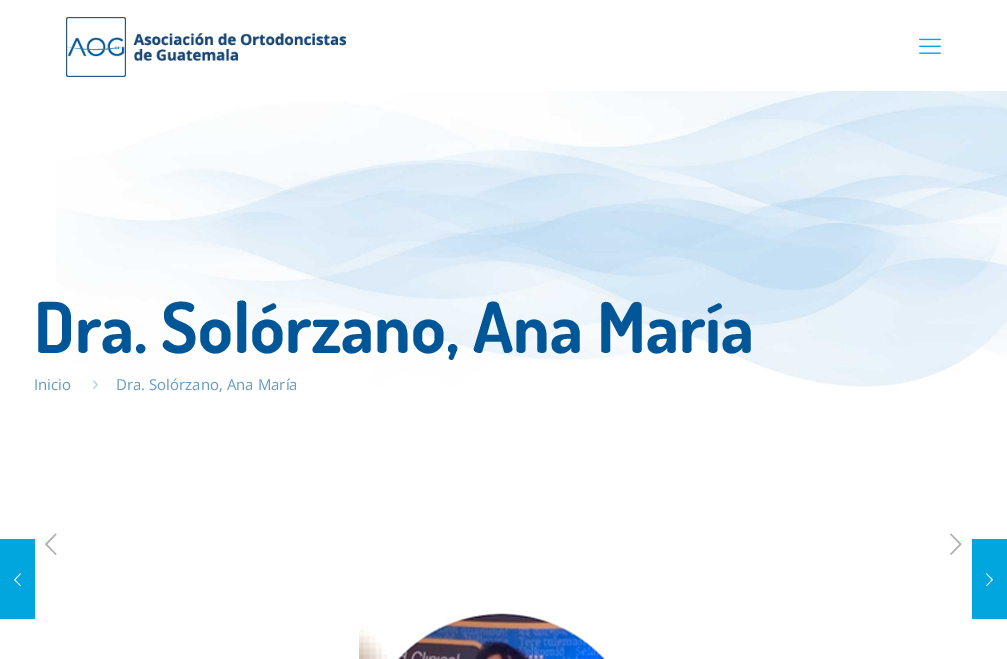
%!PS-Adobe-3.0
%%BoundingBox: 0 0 1007 659
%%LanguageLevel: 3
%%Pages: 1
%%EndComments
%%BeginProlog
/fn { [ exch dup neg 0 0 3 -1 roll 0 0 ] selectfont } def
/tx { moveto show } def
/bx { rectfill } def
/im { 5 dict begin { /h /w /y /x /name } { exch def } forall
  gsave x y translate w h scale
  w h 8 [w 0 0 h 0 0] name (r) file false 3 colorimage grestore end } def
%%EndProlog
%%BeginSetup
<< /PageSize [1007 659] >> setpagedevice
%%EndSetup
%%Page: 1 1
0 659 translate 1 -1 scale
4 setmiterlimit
1 setgray
0 0 1007 659 bx
(image0.raw) 66 17 280 60 im
(image1.raw) 919 38 22 16 im
(image2.raw) 56 91 951 296 im
/Dosis-Bold 70 fn
0 0.337 0.588 setrgbcolor
(Dra. Solórzano, Ana María) 34 353 tx
/OpenSans-Regular 15 fn
0.4 0.604 0.753 setrgbcolor
(Inicio) 34 390 tx
(image3.raw) 93 380 5 9 im
(Dra. Solórzano, Ana María) 116 390 tx
(image4.raw) 45 533 12 22 im
(image5.raw) 950 533 12 22 im
(image6.raw) 359 613 246 46 im
0 0.651 0.867 setrgbcolor
0 539 35 80 bx
(image7.raw) 14 573 7 14 im
972 539 35 80 bx
(image8.raw) 986 573 7 14 im
showpage
%%EOF
